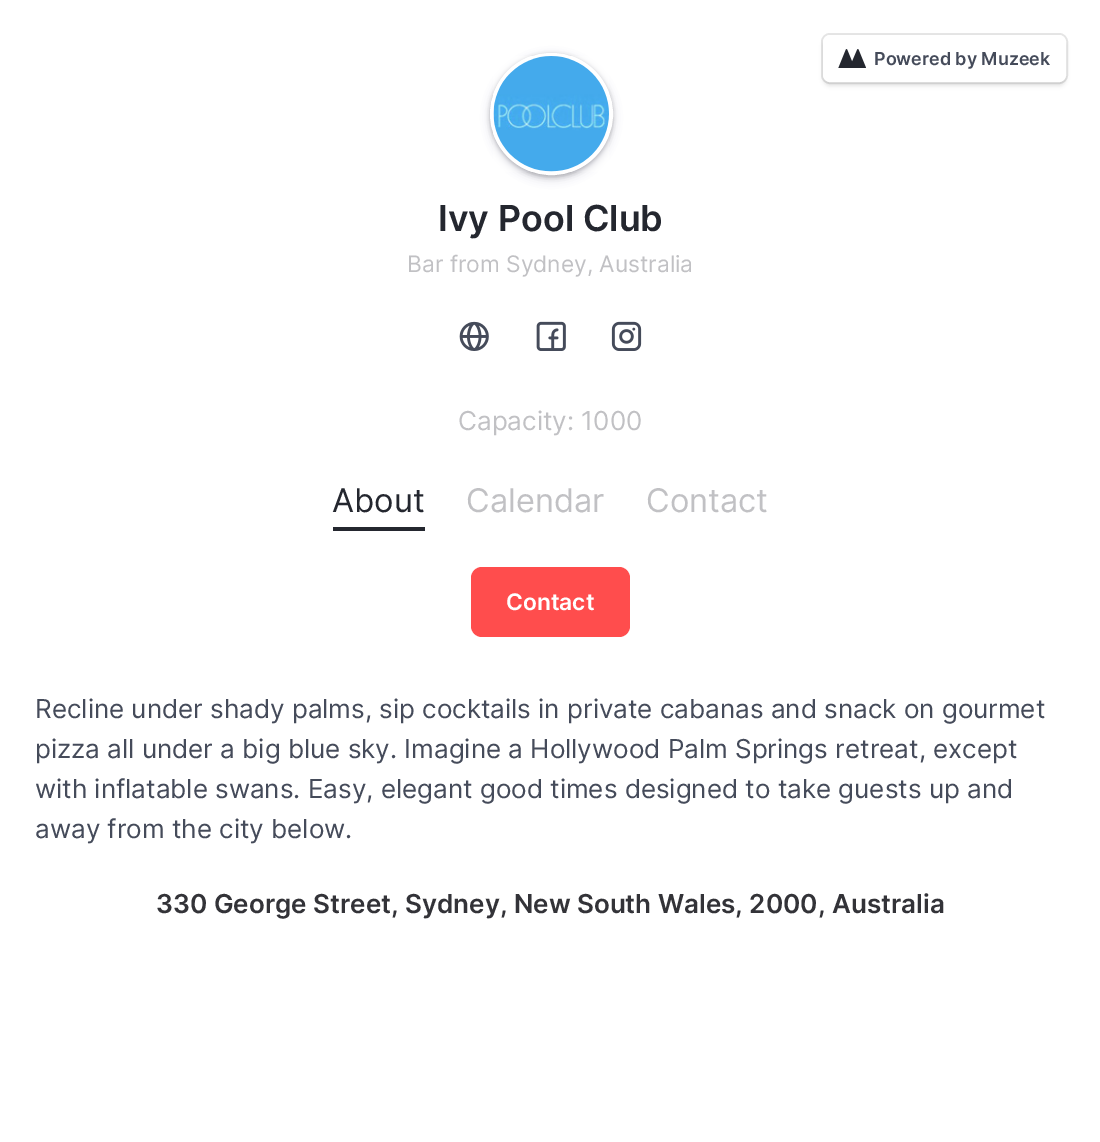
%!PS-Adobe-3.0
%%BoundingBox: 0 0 1100 1142
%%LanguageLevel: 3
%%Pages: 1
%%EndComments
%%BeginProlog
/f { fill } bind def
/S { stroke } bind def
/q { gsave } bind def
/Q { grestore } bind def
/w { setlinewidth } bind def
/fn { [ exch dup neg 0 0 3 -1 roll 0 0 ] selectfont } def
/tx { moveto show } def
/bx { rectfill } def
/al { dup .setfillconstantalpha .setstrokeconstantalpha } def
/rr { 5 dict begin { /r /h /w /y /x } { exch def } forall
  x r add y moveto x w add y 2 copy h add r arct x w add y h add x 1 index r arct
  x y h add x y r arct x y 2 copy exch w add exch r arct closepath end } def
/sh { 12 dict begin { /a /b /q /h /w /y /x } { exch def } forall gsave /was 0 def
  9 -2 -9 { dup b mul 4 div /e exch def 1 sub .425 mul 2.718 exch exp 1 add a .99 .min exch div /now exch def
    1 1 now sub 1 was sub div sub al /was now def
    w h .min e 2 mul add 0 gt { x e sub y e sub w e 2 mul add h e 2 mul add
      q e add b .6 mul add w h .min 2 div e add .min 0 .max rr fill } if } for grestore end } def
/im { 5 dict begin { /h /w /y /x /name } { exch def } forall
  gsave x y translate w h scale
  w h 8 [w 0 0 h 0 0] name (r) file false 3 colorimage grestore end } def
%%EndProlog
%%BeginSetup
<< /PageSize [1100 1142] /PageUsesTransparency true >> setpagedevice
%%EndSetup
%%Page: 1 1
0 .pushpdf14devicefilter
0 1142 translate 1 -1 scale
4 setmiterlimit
1 setgray
0 0 1100 1142 bx
0 setgray
823 39 243 47 7 2 0.1 sh
0.1 al
2 w
822 34 245 49 8 rr S
1 al
1 setgray
824 36 241 45 6 rr q f Q
S
(image0.raw) 838 49 28 19 im
/Inter-SemiBold 19.25 fn
0.271 0.294 0.353 setrgbcolor
(Powered by Muzeek) 874 65 tx
0.192 0.192 0.365 setrgbcolor
490 56 123 123 61.5 4.5 0.2 sh
0 setgray
490 54 123 123 61.5 2 0.2 sh
1 setgray
4 w
492 55 119 118 59 rr S
(image1.raw) 493 56 116 116 im
/Inter-SemiBold 38.5 fn
0.141 0.153 0.184 setrgbcolor
(Ivy Pool Club) 438 231 tx
/Inter-Regular 24.5 fn
0.757 0.757 0.769 setrgbcolor
(Bar from Sydney, Australia) 407 272 tx
(image2.raw) 459 321 30 30 im
(image3.raw) 536 321 30 30 im
(image4.raw) 611 321 31 30 im
/Inter-Regular 28 fn
(Capacity: 1000) 458 430 tx
0.141 0.153 0.184 setrgbcolor
333 527 92 4 bx
/Inter-Regular 35 fn
(About) 332 512 tx
0.757 0.757 0.769 setrgbcolor
(Calendar) 466 512 tx
(Contact) 646 512 tx
1 0.302 0.302 setrgbcolor
471 567 159 70 11 rr f
/Inter-SemiBold 24.5 fn
1 setgray
(Contact) 506 610 tx
/Inter-Regular 28 fn
0.271 0.294 0.353 setrgbcolor
(Recline under shady palms, sip cocktails in private cabanas and snack on gourmet) 35 718 tx
(pizza all under a big blue sky. Imagine a Hollywood Palm Springs retreat, except) 35 758 tx
(with inflatable swans. Easy, elegant good times designed to take guests up and) 35 798 tx
(away from the city below.) 35 838 tx
/Inter-SemiBold 28 fn
0.2 0.2 0.22 setrgbcolor
(330 George Street, Sydney, New South Wales, 2000, Australia) 156 913 tx
.poppdf14devicefilter showpage
%%EOF
